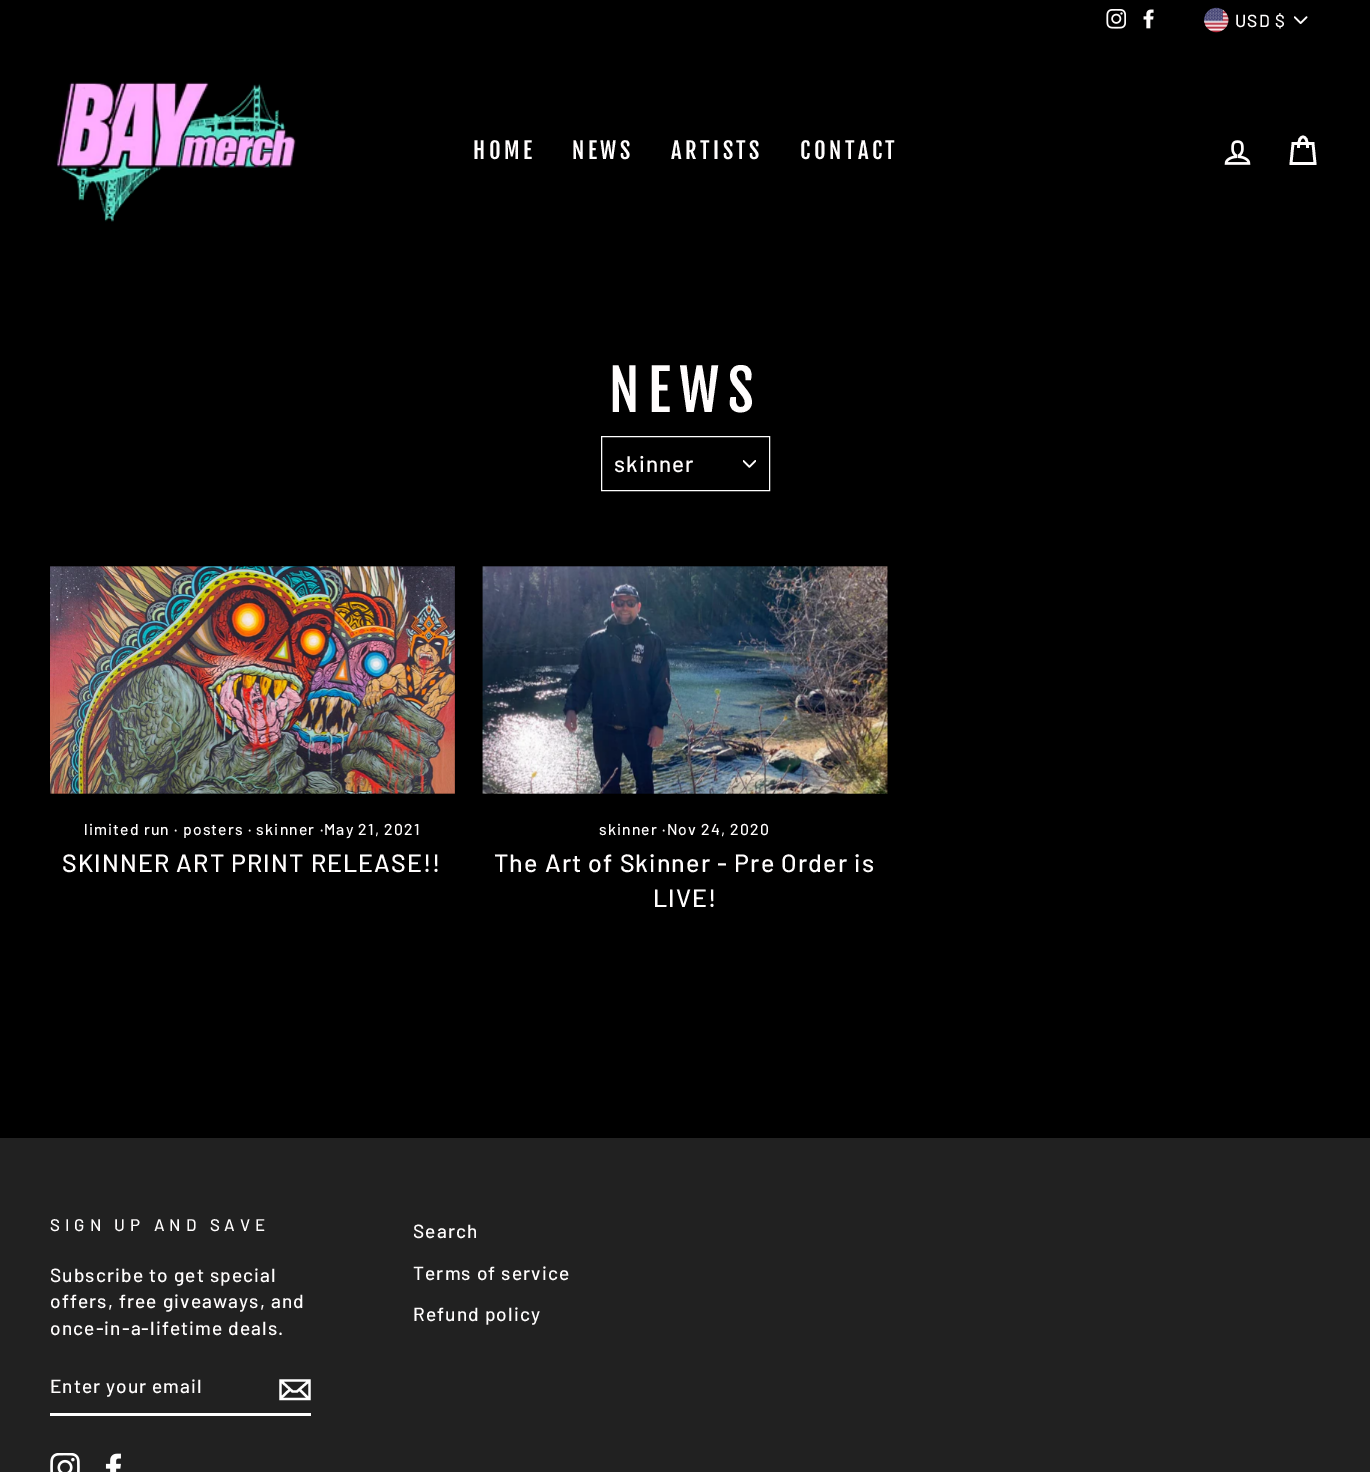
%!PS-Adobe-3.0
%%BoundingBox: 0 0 1370 1472
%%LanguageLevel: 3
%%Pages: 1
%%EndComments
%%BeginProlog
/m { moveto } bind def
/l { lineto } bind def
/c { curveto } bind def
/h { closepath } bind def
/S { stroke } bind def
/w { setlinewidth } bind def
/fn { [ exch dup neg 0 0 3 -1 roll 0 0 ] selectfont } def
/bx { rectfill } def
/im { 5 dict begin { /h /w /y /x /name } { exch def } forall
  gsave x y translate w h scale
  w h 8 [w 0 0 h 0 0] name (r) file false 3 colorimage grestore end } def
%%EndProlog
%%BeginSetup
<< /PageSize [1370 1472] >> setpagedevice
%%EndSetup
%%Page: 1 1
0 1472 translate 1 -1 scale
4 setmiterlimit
0 setgray
0 0 1370 1472 bx
(image0.raw) 1106 9 20 20 im
(image1.raw) 1143 9 11 20 im
(image2.raw) 1294 16 14 8 im
(image3.raw) 1203 7 26 26 im
/Barlow-Medium 17.5 fn
1 0.992 0.992 setrgbcolor
1235 27 m 1 0 (USD $) ashow
(image4.raw) 56 82 240 140 im
/FjallaOne-Regular 22.5 fn
473 159 m 3.5 0 (HOME) ashow
572 159 m 3.5 0 (NEWS) ashow
671 159 m 3.5 0 (ARTISTS) ashow
800 159 m 3.5 0 (CONTACT) ashow
(image5.raw) 1224 140 27 25 im
2.7 w
1298.5 148 m 1298.5 139.5 1300.5 137 1303 137 c 1305.5 137 1307.5 139.5 1307.5 148 c 1293 143.5 m 1313 143.5 l 1315 163.5 l 1291 163.5 l h S
/FjallaOne-Regular 56 fn
609 412 m 8.5 0 (NEWS) ashow
(image6.raw) 743 460 13 8 im
1 setgray
1 w
601.5 436.5 168 54 rectstroke
/Barlow-Medium 22.5 fn
1 0.992 0.992 setrgbcolor
614 472 m 1.1 0 (skinner) ashow
(image7.raw) 50 566 405 228 im
/Barlow-Medium 15.75 fn
84 835 m 1.1 0 (limited run · posters · skinner ·May 21, 2021) ashow
/Barlow-Medium 25 fn
62 872 m 1.1 0 (SKINNER ART PRINT RELEASE!!) ashow
(image8.raw) 482 566 406 228 im
/Barlow-Medium 15.75 fn
599 835 m 1.1 0 (skinner ·Nov 24, 2020) ashow
/Barlow-Medium 25 fn
494 872 m 1.1 0 (The Art of Skinner - Pre Order is) ashow
653 907 m 1.1 0 (LIVE!) ashow
0.129 setgray
0 1138 1370 334 bx
/Barlow-Medium 16.9 fn
1 0.992 0.992 setrgbcolor
50 1231 m 5 0 (SIGN UP AND SAVE) ashow
/Barlow-Medium 19.1 fn
50 1282 m 1.1 0 (Subscribe to get special) ashow
50 1308 m 1.1 0 (offers, free giveaways, and) ashow
50 1335 m 1.1 0 (once-in-a-lifetime deals.) ashow
1 setgray
50 1413 261 3 bx
1 0.992 0.992 setrgbcolor
50 1393 m 1 0 (Enter your email) ashow
1 setgray
2.3 w
309.5 1399 m 280.5 1399 l 280.5 1380.5 l 309.5 1380.5 l h 280.5 1380.5 m 292.5 1391.5 l 297 1391.5 l 309.5 1380.5 l 290 1389.5 m 280.5 1398.5 l 309 1399 m 299.5 1389.5 l S
(image9.raw) 50 1453 30 19 im
(image10.raw) 105 1453 16 19 im
1 0.992 0.992 setrgbcolor
413 1238 m 1.1 0 (Search) ashow
413 1280 m 1.1 0 (Terms of service) ashow
413 1321 m 1.1 0 (Refund policy) ashow
showpage
%%EOF
